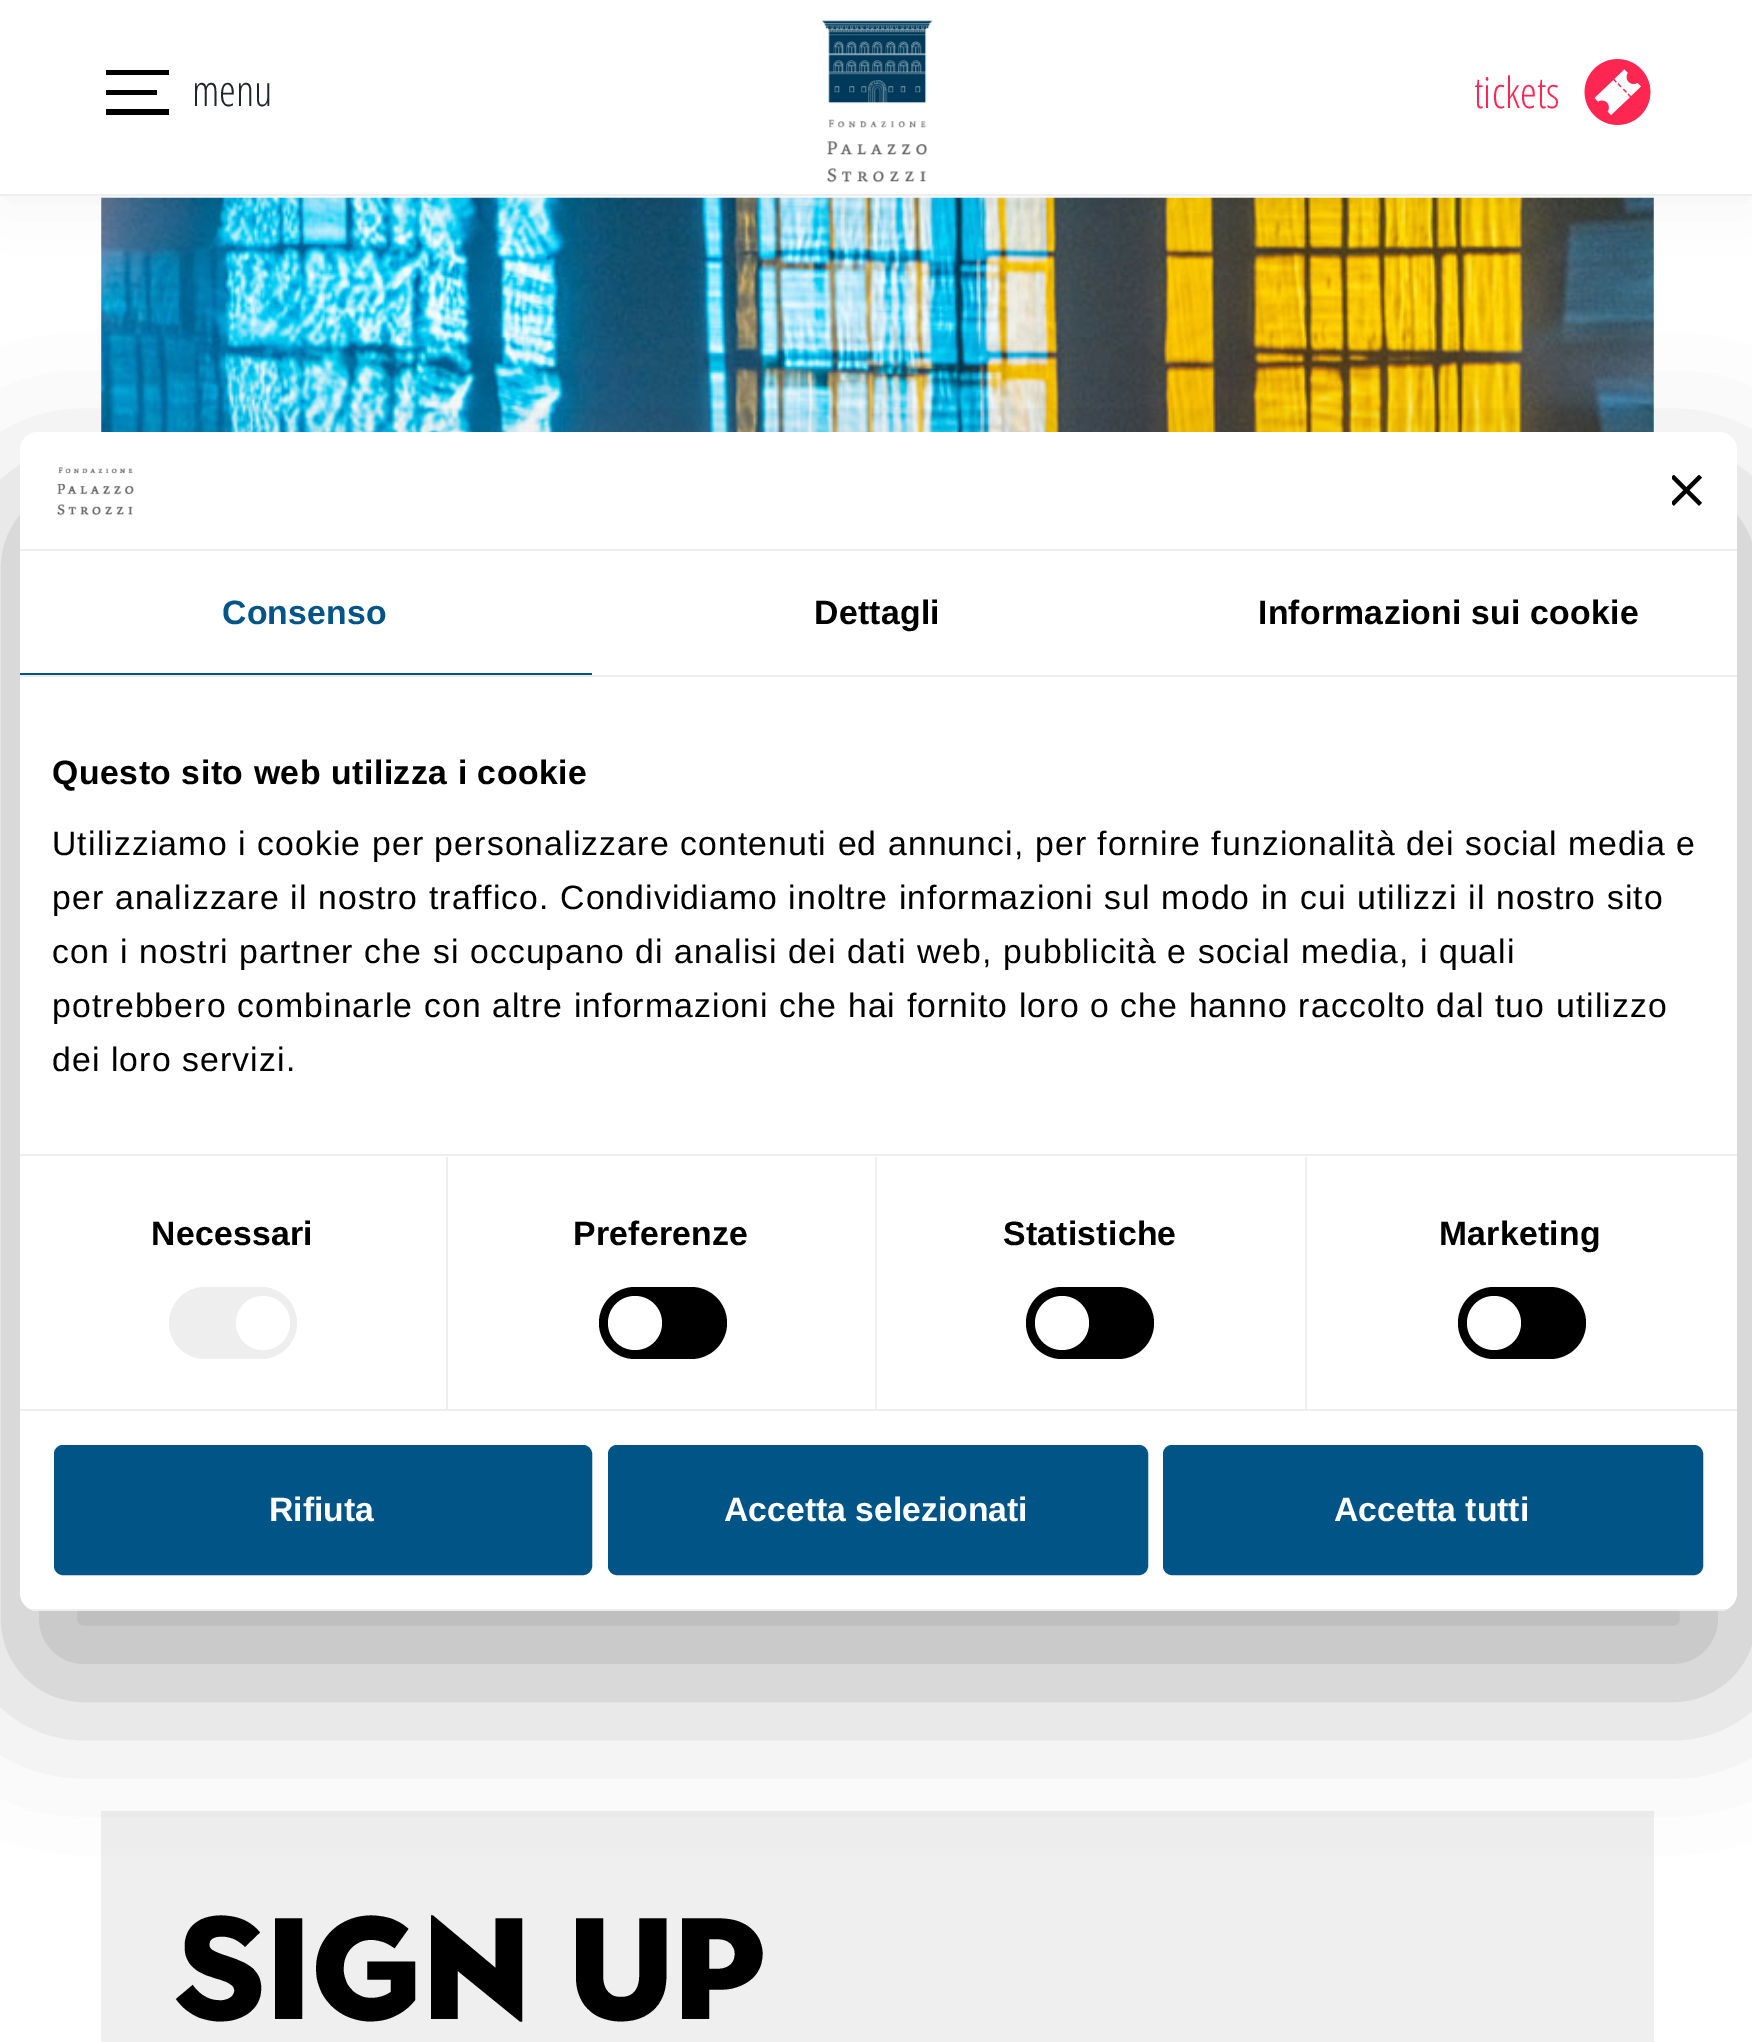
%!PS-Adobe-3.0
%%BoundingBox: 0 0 1752 2042
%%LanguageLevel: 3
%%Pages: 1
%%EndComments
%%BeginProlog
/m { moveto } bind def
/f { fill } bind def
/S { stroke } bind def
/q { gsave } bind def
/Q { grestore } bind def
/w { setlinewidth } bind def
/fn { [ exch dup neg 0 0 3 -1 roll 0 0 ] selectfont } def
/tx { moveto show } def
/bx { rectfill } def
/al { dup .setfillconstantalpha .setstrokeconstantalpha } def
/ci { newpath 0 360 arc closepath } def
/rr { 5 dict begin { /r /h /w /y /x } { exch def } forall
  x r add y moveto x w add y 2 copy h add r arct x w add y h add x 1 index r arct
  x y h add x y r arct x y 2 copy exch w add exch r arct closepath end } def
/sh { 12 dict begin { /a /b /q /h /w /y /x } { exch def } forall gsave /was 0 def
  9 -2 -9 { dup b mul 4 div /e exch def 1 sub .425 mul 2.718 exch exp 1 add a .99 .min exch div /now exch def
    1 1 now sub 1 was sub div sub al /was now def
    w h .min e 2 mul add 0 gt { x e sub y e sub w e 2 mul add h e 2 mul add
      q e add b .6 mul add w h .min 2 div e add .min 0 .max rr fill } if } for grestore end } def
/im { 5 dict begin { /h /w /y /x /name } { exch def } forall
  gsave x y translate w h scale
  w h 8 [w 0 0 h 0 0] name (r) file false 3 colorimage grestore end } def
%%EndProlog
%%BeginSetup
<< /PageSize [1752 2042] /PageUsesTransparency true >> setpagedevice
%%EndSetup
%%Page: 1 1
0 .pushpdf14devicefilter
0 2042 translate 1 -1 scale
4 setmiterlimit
1 setgray
0 0 1752 2042 bx
(image2.raw) 101 197 1553 235 im
0 setgray
0 0 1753 196 0 34 0.05 sh
1 setgray
0 0 1752 194 bx
0.933 setgray
0 194 1752 2 bx
0 setgray
106 109 63 6 bx
106 90 51 5 bx
106 70 63 5 bx
/OpenSansCondensed-Light 43 fn
0.129 0.145 0.161 setrgbcolor
(menu) 192 106 tx
(image0.raw) 821 20 112 163 im
1 0.153 0.322 setrgbcolor
(tickets) 1474 108 tx
(image1.raw) 1584 59 67 66 im
0.937 setgray
101 1811 1553 231 bx
/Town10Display-Black 144 fn
0 setgray
(Sign up) 172 2019 tx
20 504 1717 1179 18 76.5 0.3 sh
1 setgray
20 432 1717 1179 18 rr f
0.933 setgray
20 549 1717 2 bx
(image3.raw) 57 467 77 49 im
(image4.raw) 1672 475 30 31 im
20 675 1717 2 bx
0 0.329 0.525 setrgbcolor
20 673 572 2 bx
/LiberationSans-Bold 33.75 fn
222 624 m 0.25 0 (Consenso) ashow
0 setgray
814 624 m 0.25 0 (Dettagli) ashow
1258 624 m 0.25 0 (Informazioni sui cookie) ashow
0.933 setgray
20 1154 1717 2 bx
0 setgray
52 784 m 0.55 0 (Questo sito web utilizza i cookie) ashow
/LiberationSans-Regular 33.75 fn
52 855 m 1.12 0 (Utilizziamo i cookie per personalizzare contenuti ed annunci, per fornire funzionalità dei social media e) ashow
52 909 m 1.12 0 (per analizzare il nostro traffico. Condividiamo inoltre informazioni sul modo in cui utilizzi il nostro sito) ashow
52 963 m 1.12 0 (con i nostri partner che si occupano di analisi dei dati web, pubblicità e social media, i quali) ashow
52 1017 m 1.12 0 (potrebbero combinarle con altre informazioni che hai fornito loro o che hanno raccolto dal tuo utilizzo) ashow
52 1071 m 1.12 0 (dei loro servizi.) ashow
0.933 setgray
20 1409 1717 2 bx
446 1157 2 252 bx
/LiberationSans-Bold 33.75 fn
0 setgray
151 1245 m 0.25 0 (Necessari) ashow
0.933 setgray
169 1287 128 72 36 rr f
1 setgray
263 1323 27 ci f
0.933 setgray
875 1157 2 252 bx
0 setgray
573 1245 m 0.25 0 (Preferenze) ashow
599 1287 128 72 36 rr f
1 setgray
635 1323 27 ci f
0.933 setgray
1305 1157 2 252 bx
0 setgray
1003 1245 m 0.25 0 (Statistiche) ashow
1026 1287 128 72 36 rr f
1 setgray
1062 1323 27 ci f
0 setgray
1439 1245 m 0.25 0 (Marketing) ashow
1458 1287 128 72 36 rr f
1 setgray
1494 1323 27 ci f
q
20 432 1717 1179 18 rr clip newpath
0.933 setgray
30 1609 1697 2 bx
Q
0 0.329 0.525 setrgbcolor
56.5 1447.5 533 125 6.5 rr q f Q
5 w
S
1 setgray
(Rifiuta) 269 1521 tx
0 0.329 0.525 setrgbcolor
610.5 1447.5 535 125 6.5 rr q f Q
S
1 setgray
(Accetta selezionati) 724 1521 tx
0 0.329 0.525 setrgbcolor
1165.5 1447.5 535 125 6.5 rr q f Q
S
1 setgray
(Accetta tutti) 1334 1521 tx
.poppdf14devicefilter showpage
%%EOF
